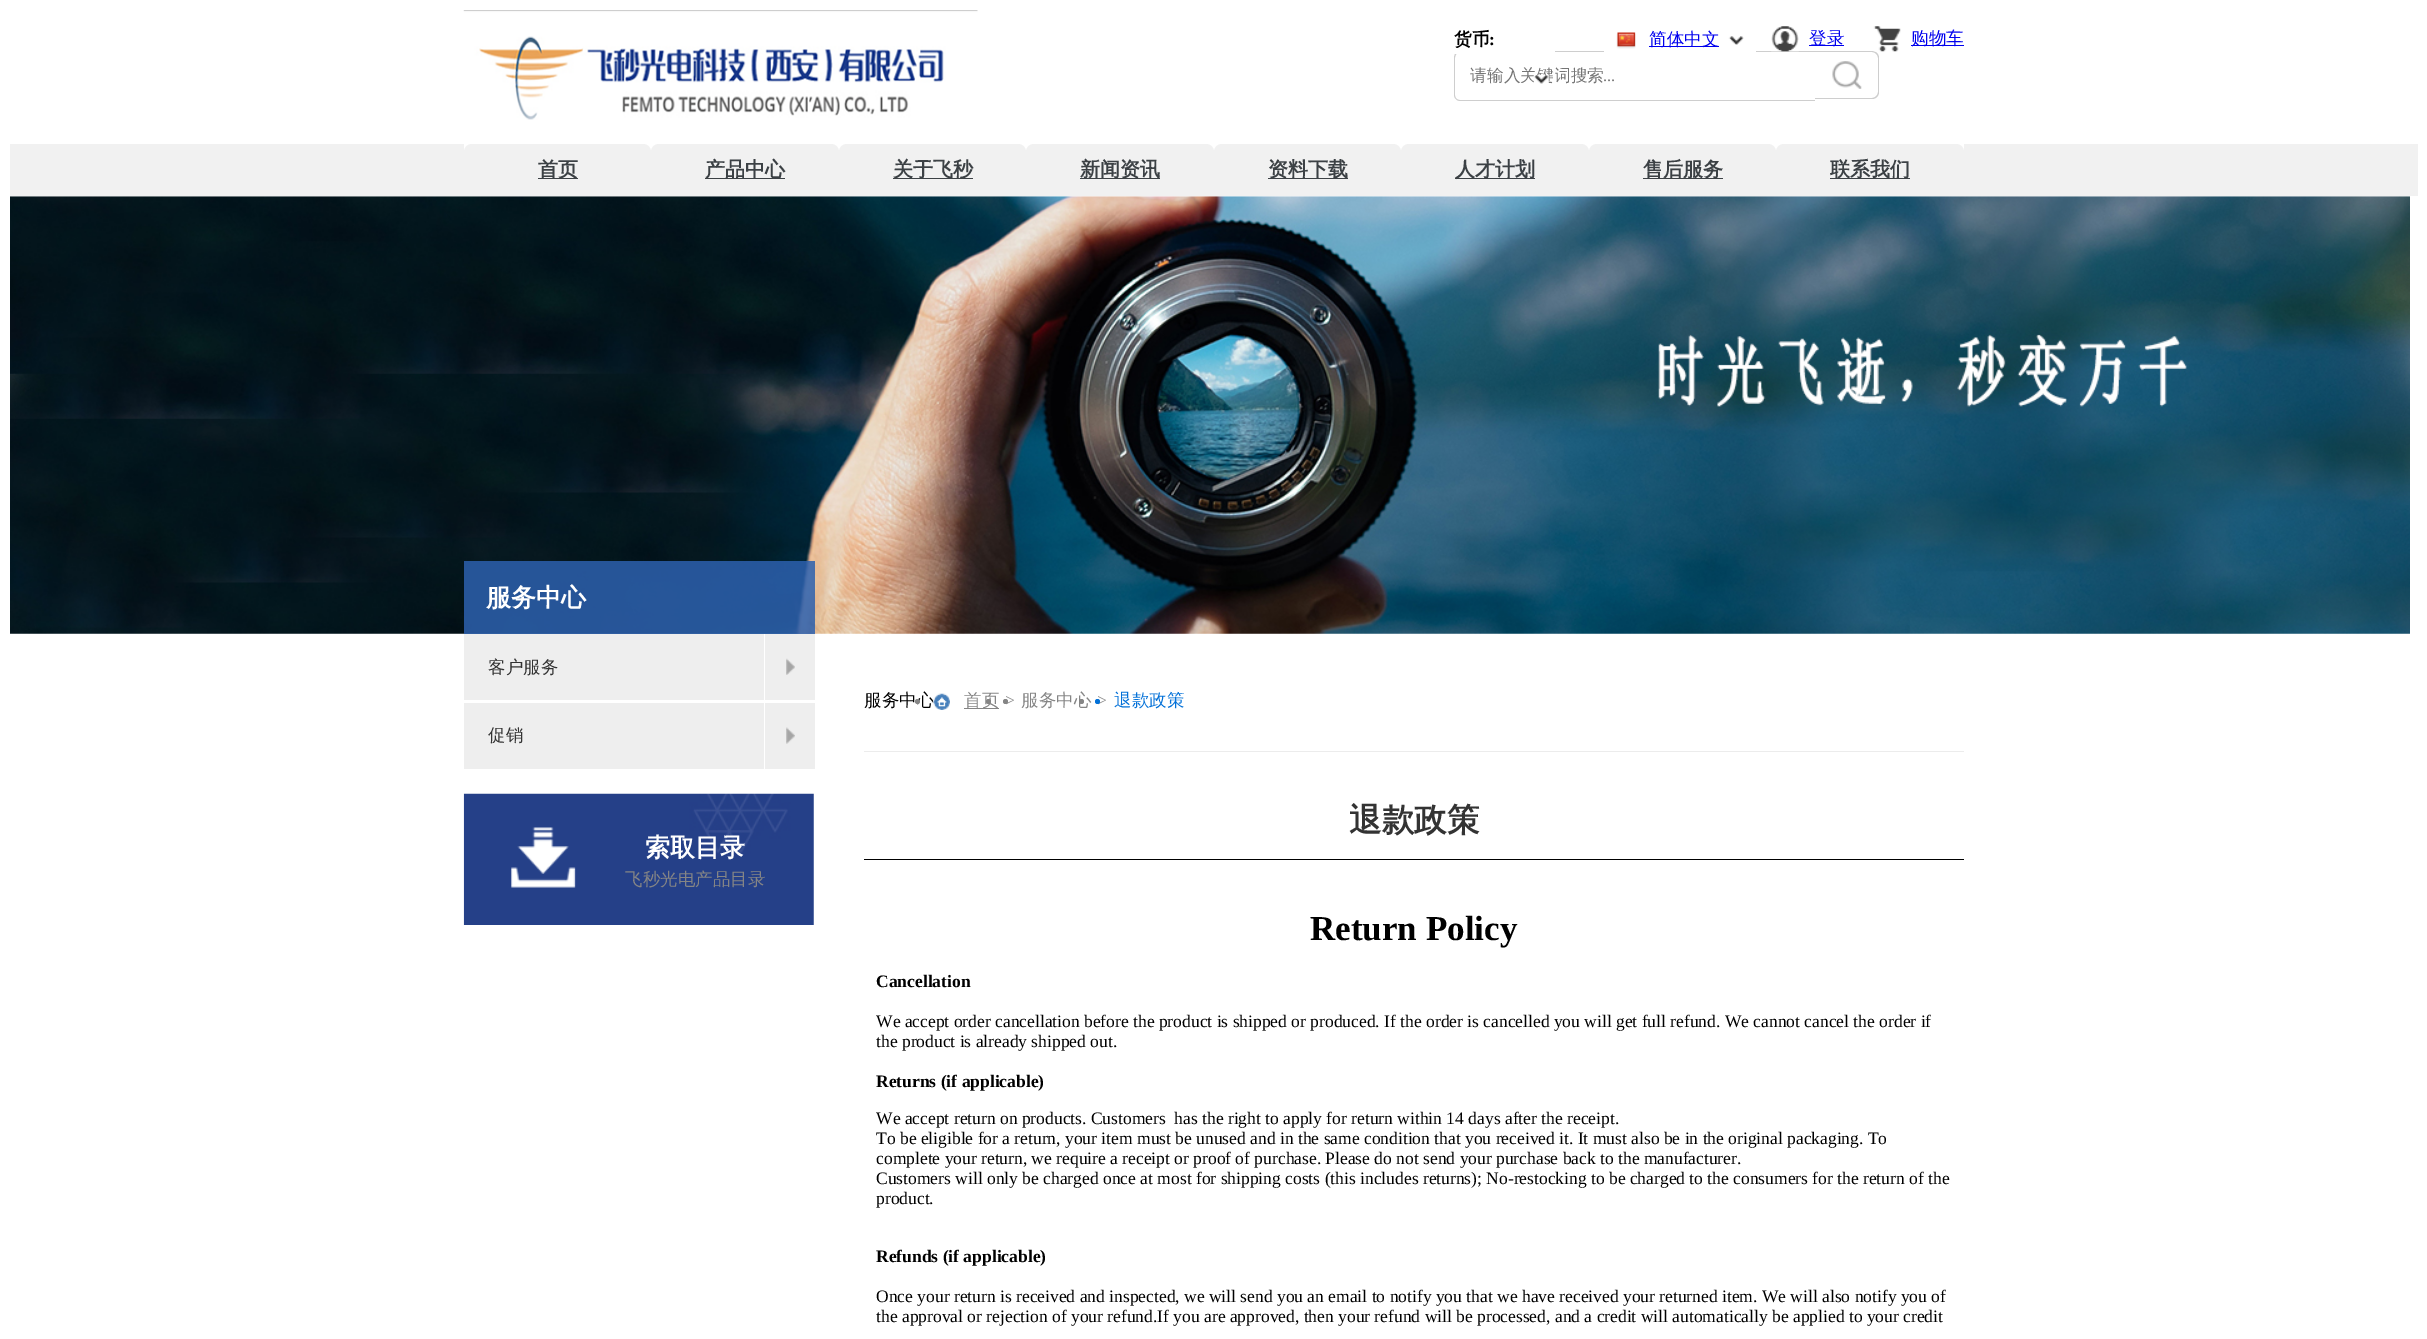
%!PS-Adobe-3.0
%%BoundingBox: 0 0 2427 1339
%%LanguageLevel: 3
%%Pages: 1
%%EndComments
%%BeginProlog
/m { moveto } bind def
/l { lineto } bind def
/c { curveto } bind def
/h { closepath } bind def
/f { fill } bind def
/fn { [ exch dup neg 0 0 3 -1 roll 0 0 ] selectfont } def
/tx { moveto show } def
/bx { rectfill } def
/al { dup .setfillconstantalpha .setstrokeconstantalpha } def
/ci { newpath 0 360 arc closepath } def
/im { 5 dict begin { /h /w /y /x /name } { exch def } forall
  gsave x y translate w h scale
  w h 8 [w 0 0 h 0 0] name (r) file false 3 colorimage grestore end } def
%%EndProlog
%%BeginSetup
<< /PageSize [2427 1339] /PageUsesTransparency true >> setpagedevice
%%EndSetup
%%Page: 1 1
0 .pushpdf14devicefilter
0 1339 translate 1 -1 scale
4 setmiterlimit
1 setgray
0 0 2427 1339 bx
(image0.raw) 463 10 515 110 im
0.808 setgray
1460 51 m 1815 51 l 1815 101 l 1460 101 l 1457 101 1454 98 1454 95 c 1454 58 l 1454 54 1457 51 1460 51 c h 1460 52 m 1815 52 l 1815 100 l 1460 100 l 1457 100 1455 98 1455 95 c 1455 58 l 1455 55 1457 52 1460 52 c h eofill
1 setgray
1455 51 100 3 bx
/WenQuanYiZenHei-Bold 17.5 fn
0 setgray
(货币) 1454 45 tx
/LiberationSerif-Bold 17.5 fn
(:) 1489 45 tx
/WenQuanYiZenHei-Medium 16.75 fn
0.459 setgray
(请输入关键词搜索) 1470 81 tx
(image1.raw) 1533 75 16 9 im
1 setgray
1458.5 61.5 96 24 rectstroke
1604 51 152 1 bx
(image2.raw) 1728 36 16 9 im
(image3.raw) 1616 32 20 17 im
0 0 0.933 setrgbcolor
1649 46 70 1 bx
/WenQuanYiZenHei-Medium 17.5 fn
(简体中文) 1649 45 tx
(image4.raw) 1771 26 28 26 im
1809 45 35 1 bx
(登录) 1809 44 tx
(image6.raw) 1832 61 30 28 im
0.808 setgray
1815 51 m 1872 51 l 1876 51 1879 54 1879 58 c 1879 92 l 1879 96 1876 99 1872 99 c 1815 99 l h 1815 52 m 1872 52 l 1875 52 1878 55 1878 58 c 1878 92 l 1878 95 1875 98 1872 98 c 1815 98 l h eofill
(image5.raw) 1873 26 28 26 im
0 0 0.933 setrgbcolor
1911 45 53 1 bx
(购物车) 1911 44 tx
/LiberationSerif-Regular 16.75 fn
0.459 setgray
(...) 1603 81 tx
0.945 setgray
10 144 2408 52 bx
1 setgray
464 144 1500 8 bx
0.945 setgray
472 144 m 643 144 l 647.5 144 651 147.5 651 152 c 651 196 l 464 196 l 464 152 l 464 147.5 467.5 144 472 144 c h f
0.235 0.255 0.271 setrgbcolor
538 178 40 1 bx
/WenQuanYiZenHei-Bold 20 fn
(首页) 538 176 tx
0.945 setgray
659 144 m 831 144 l 835.5 144 839 147.5 839 152 c 839 196 l 651 196 l 651 152 l 651 147.5 654.5 144 659 144 c h f
0.235 0.255 0.271 setrgbcolor
705 178 80 1 bx
(产品中心) 705 176 tx
0.945 setgray
847 144 m 1018 144 l 1022.5 144 1026 147.5 1026 152 c 1026 196 l 839 196 l 839 152 l 839 147.5 842.5 144 847 144 c h f
0.235 0.255 0.271 setrgbcolor
893 178 80 1 bx
(关于飞秒) 893 176 tx
0.945 setgray
1034 144 m 1206 144 l 1210.5 144 1214 147.5 1214 152 c 1214 196 l 1026 196 l 1026 152 l 1026 147.5 1029.5 144 1034 144 c h f
0.235 0.255 0.271 setrgbcolor
1080 178 80 1 bx
(新闻资讯) 1080 176 tx
0.945 setgray
1222 144 m 1393 144 l 1397.5 144 1401 147.5 1401 152 c 1401 196 l 1214 196 l 1214 152 l 1214 147.5 1217.5 144 1222 144 c h f
0.235 0.255 0.271 setrgbcolor
1268 178 80 1 bx
(资料下载) 1268 176 tx
0.945 setgray
1409 144 m 1581 144 l 1585.5 144 1589 147.5 1589 152 c 1589 196 l 1401 196 l 1401 152 l 1401 147.5 1404.5 144 1409 144 c h f
0.235 0.255 0.271 setrgbcolor
1455 178 80 1 bx
(人才计划) 1455 176 tx
0.945 setgray
1597 144 m 1768 144 l 1772.5 144 1776 147.5 1776 152 c 1776 196 l 1589 196 l 1589 152 l 1589 147.5 1592.5 144 1597 144 c h f
0.235 0.255 0.271 setrgbcolor
1643 178 80 1 bx
(售后服务) 1643 176 tx
0.945 setgray
1784 144 m 1956 144 l 1960.5 144 1964 147.5 1964 152 c 1964 196 l 1776 196 l 1776 152 l 1776 147.5 1779.5 144 1784 144 c h f
0.235 0.255 0.271 setrgbcolor
1830 178 80 1 bx
(联系我们) 1830 176 tx
(image7.raw) 10 196 2400 438 im
0.85 al
0.173 0.376 0.682 setrgbcolor
464 561 351 73 bx
/WenQuanYiZenHei-Bold 25 fn
1 al
1 setgray
(服务中心) 486 606 tx
0.933 setgray
464 634 300 66 bx
/WenQuanYiZenHei-Medium 17.5 fn
0.2 setgray
(客户服务) 488 673 tx
0.933 setgray
765 634 50 66 bx
(image8.raw) 786 658 9 17 im
464 703 300 66 bx
0.2 setgray
(促销) 488 741 tx
0.933 setgray
765 703 50 66 bx
(image9.raw) 786 727 9 17 im
(image10.raw) 463 793 351 132 im
/WenQuanYiZenHei-Bold 25 fn
1 setgray
(索取目录) 645 856 tx
/WenQuanYiZenHei-Medium 17.5 fn
0.522 setgray
(飞秒光电产品目录) 625 885 tx
0.925 setgray
864 751 1100 1 bx
0 setgray
(服务中心) 864 706 tx
(image11.raw) 933 693 17 17 im
0.522 setgray
917.5 701.5 2.5 ci f
964 708 35 1 bx
(首页) 964 706 tx
988.5 701.5 2.5 ci f
/LiberationSerif-Regular 17.5 fn
(>) 1005 706 tx
1005.5 701.5 2.5 ci f
/WenQuanYiZenHei-Medium 17.5 fn
(服务中心) 1021 706 tx
1081.5 701.5 2.5 ci f
/LiberationSerif-Regular 17.5 fn
(>) 1097 706 tx
0.012 0.443 0.847 setrgbcolor
1097.5 701.5 2.5 ci f
/WenQuanYiZenHei-Medium 17.5 fn
(退款政策) 1114 706 tx
0 setgray
864 859 1100 1 bx
/WenQuanYiZenHei-Bold 32.5 fn
0.2 setgray
(退款政策) 1349 831 tx
/LiberationSerif-Bold 35 fn
0 setgray
(Return Policy) 1310 940 tx
/LiberationSerif-Bold 17.5 fn
(Cancellation) 876 987 tx
/LiberationSerif-Regular 17.5 fn
(We accept order cancellation before the product is shipped or produced. If the order is cancelled you will get full refund. We cannot cancel the order if) 876 1027 tx
(the product is already shipped out.) 876 1047 tx
/LiberationSerif-Bold 17.5 fn
(Returns \(if applicable\)) 876 1087 tx
/LiberationSerif-Regular 17.5 fn
(We accept return on products. Customers  has the right to apply for return within 14 days after the receipt.) 876 1124 tx
(To be eligible for a return, your item must be unused and in the same condition that you received it. It must also be in the original packaging. To) 876 1144 tx
(complete your return, we require a receipt or proof of purchase. Please do not send your purchase back to the manufacturer.) 876 1164 tx
(Customers will only be charged once at most for shipping costs \(this includes returns\); No-restocking to be charged to the consumers for the return of the) 876 1184 tx
(product.) 876 1204 tx
/LiberationSerif-Bold 17.5 fn
(Refunds \(if applicable\)) 876 1262 tx
/LiberationSerif-Regular 17.5 fn
(Once your return is received and inspected, we will send you an email to notify you that we have received your returned item. We will also notify you of) 876 1302 tx
(the approval or rejection of your refund.If you are approved, then your refund will be processed, and a credit will automatically be applied to your credit) 876 1322 tx
.poppdf14devicefilter showpage
%%EOF
